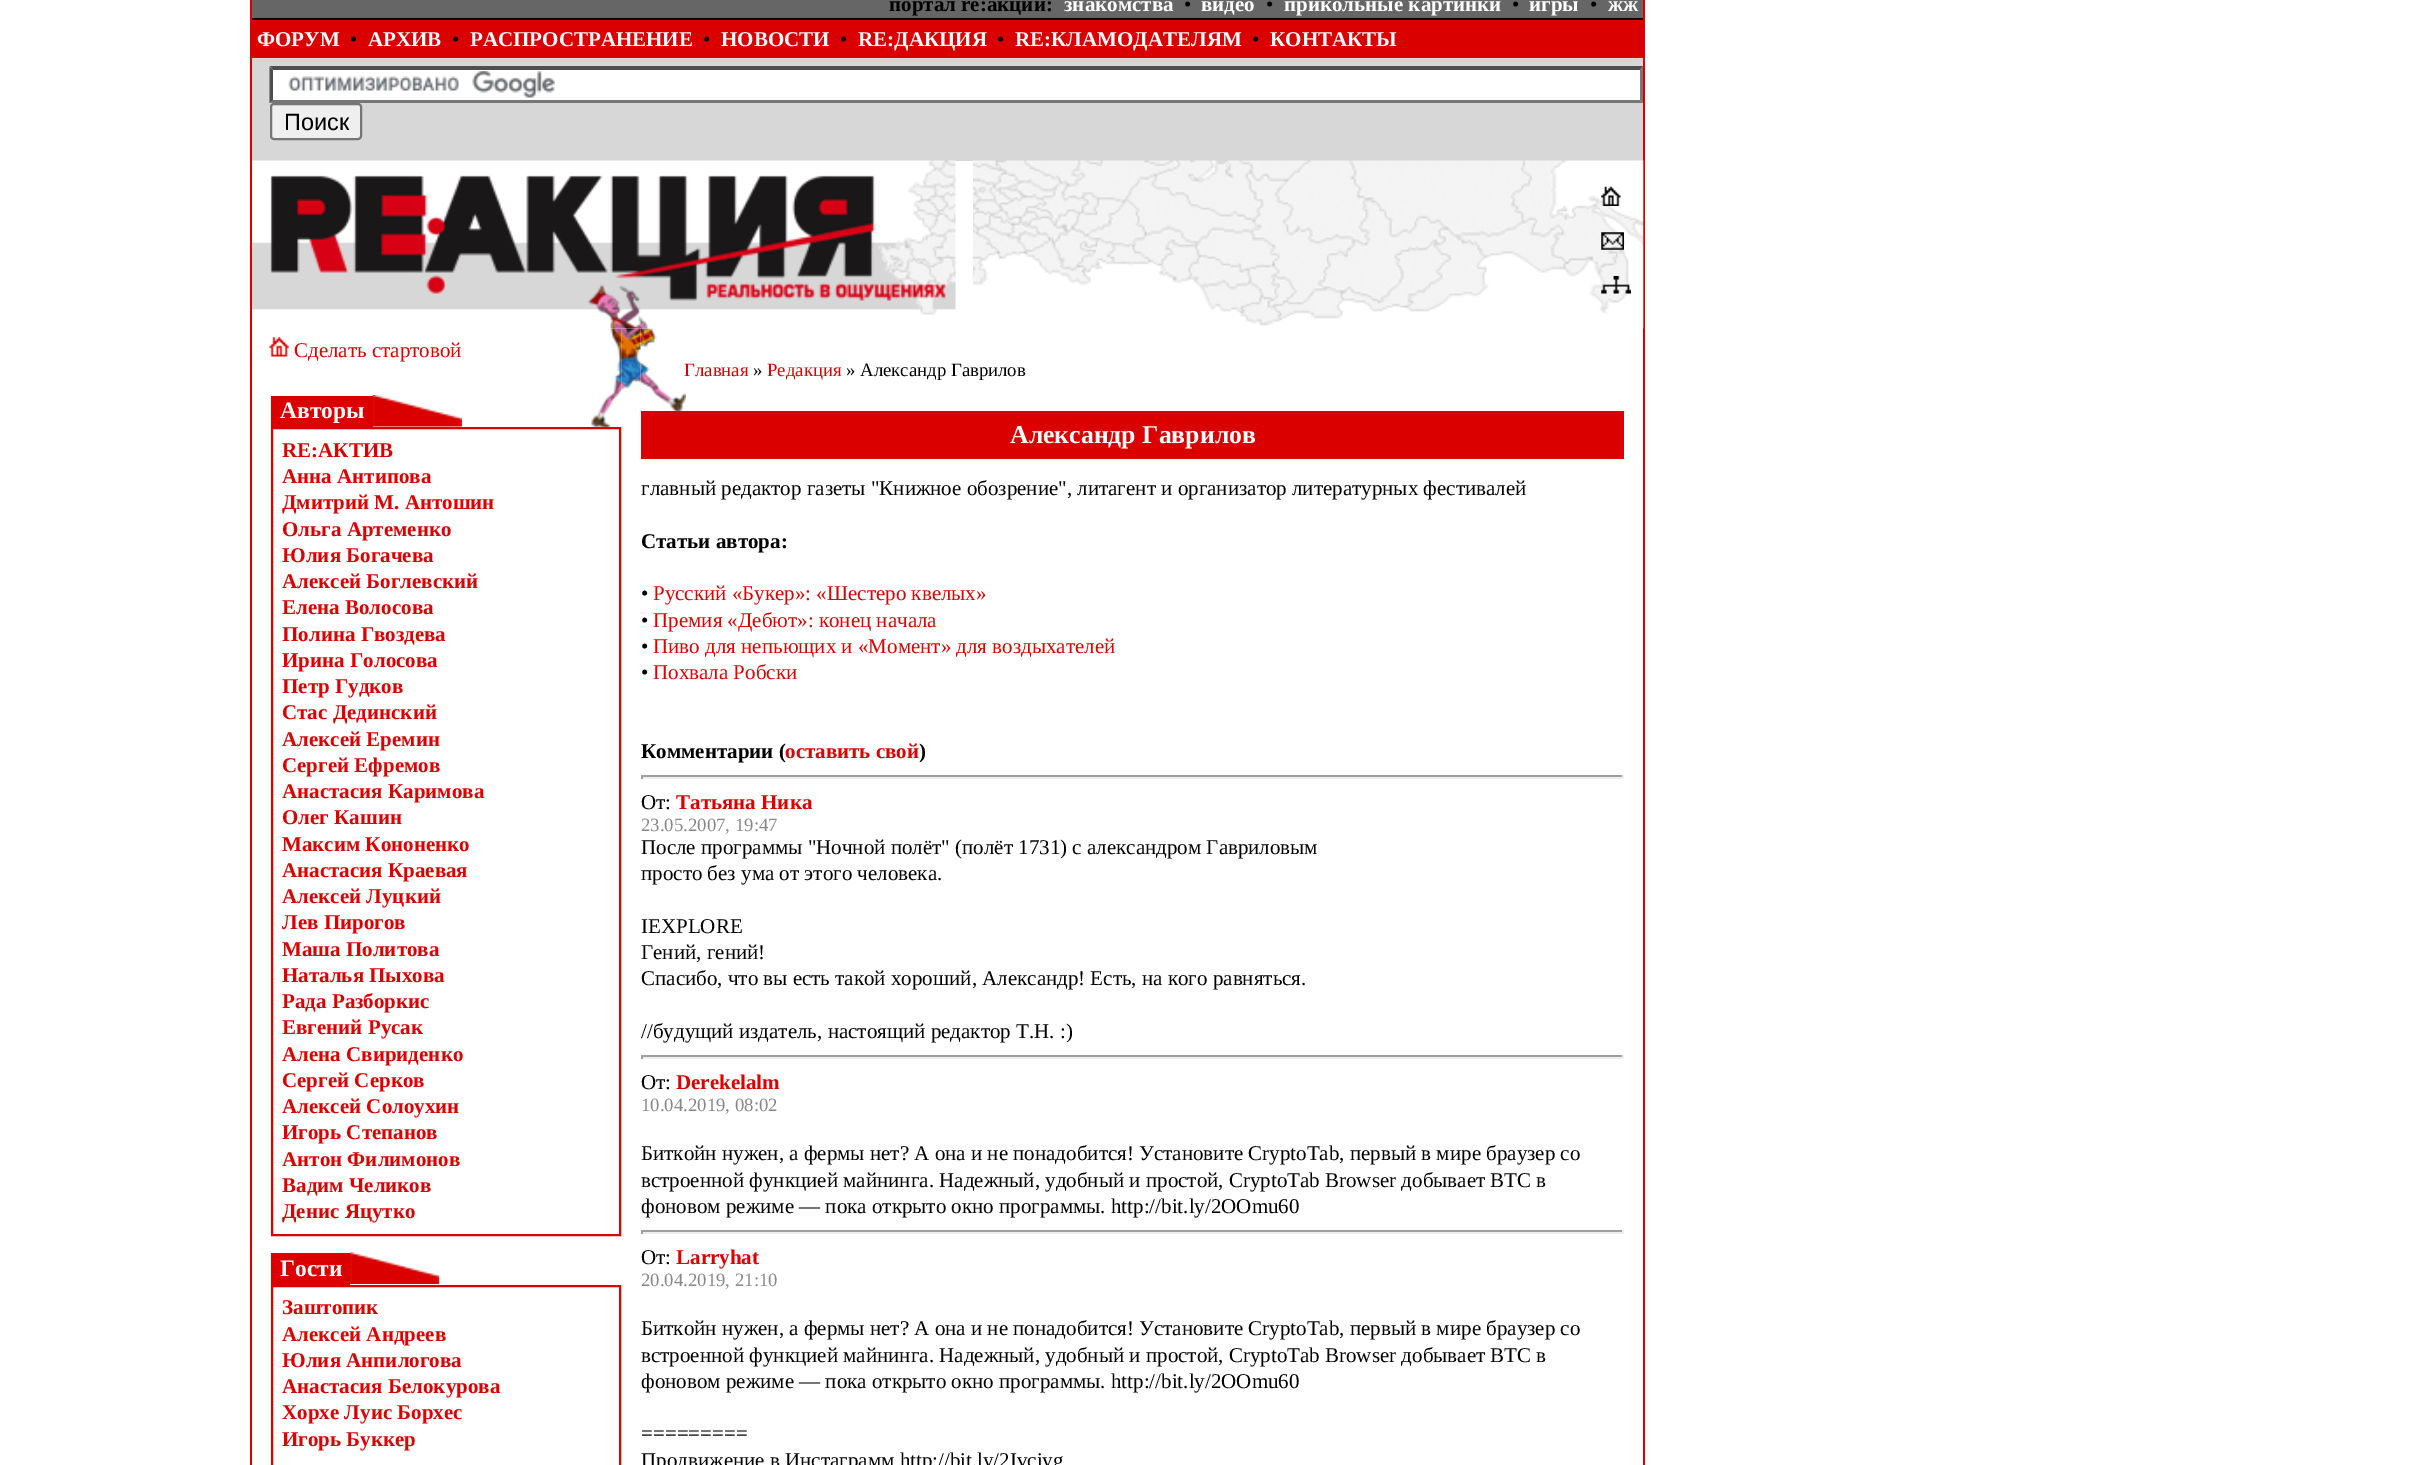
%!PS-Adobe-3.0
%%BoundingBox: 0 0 2422 1465
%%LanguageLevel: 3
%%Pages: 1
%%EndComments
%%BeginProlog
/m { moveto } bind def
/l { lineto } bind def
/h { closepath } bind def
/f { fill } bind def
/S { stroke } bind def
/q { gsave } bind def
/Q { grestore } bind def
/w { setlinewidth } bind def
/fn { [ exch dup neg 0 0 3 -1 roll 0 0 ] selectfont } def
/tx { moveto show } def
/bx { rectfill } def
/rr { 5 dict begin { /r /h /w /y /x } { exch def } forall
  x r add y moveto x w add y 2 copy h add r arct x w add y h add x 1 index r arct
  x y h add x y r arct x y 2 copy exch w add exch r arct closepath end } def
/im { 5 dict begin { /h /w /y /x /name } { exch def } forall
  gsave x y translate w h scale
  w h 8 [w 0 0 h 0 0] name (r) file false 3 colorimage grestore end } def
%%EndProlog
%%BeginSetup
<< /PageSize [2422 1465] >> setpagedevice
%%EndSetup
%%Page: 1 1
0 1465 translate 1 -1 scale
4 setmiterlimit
1 setgray
0 0 2422 1465 bx
0.859 0 0 setrgbcolor
1643 0 2 1465 bx
250 0 2 1465 bx
252 20 1391 38 bx
0.4 setgray
252 0 1391 18 bx
/LiberationSerif-Bold 21 fn
0 setgray
(портал re:акции:) 889 11 tx
1 setgray
(знакомства) 1064 11 tx
/LiberationSerif-Regular 21 fn
0 setgray
(•) 1184 11 tx
/LiberationSerif-Bold 21 fn
1 setgray
(видео) 1201 11 tx
/LiberationSerif-Regular 21 fn
0 setgray
(•) 1266 11 tx
/LiberationSerif-Bold 21 fn
1 setgray
(прикольные картинки) 1284 11 tx
/LiberationSerif-Regular 21 fn
0 setgray
(•) 1512 11 tx
/LiberationSerif-Bold 21 fn
1 setgray
(игры) 1529 11 tx
/LiberationSerif-Regular 21 fn
0 setgray
(•) 1590 11 tx
/LiberationSerif-Bold 21 fn
1 setgray
(жж) 1608 11 tx
0 setgray
252 18 1391 2 bx
1 setgray
(ФОРУМ) 257 46 tx
/LiberationSerif-Regular 21 fn
0 setgray
(•) 350 46 tx
/LiberationSerif-Bold 21 fn
1 setgray
(АРХИВ) 368 46 tx
/LiberationSerif-Regular 21 fn
0 setgray
(•) 452 46 tx
/LiberationSerif-Bold 21 fn
1 setgray
(РАСПРОСТРАНЕНИЕ) 470 46 tx
/LiberationSerif-Regular 21 fn
0 setgray
(•) 703 46 tx
/LiberationSerif-Bold 21 fn
1 setgray
(НОВОСТИ) 721 46 tx
/LiberationSerif-Regular 21 fn
0 setgray
(•) 840 46 tx
/LiberationSerif-Bold 21 fn
1 setgray
(RE:ДАКЦИЯ) 858 46 tx
/LiberationSerif-Regular 21 fn
0 setgray
(•) 997 46 tx
/LiberationSerif-Bold 21 fn
1 setgray
(RE:КЛАМОДАТЕЛЯМ) 1015 46 tx
/LiberationSerif-Regular 21 fn
0 setgray
(•) 1252 46 tx
/LiberationSerif-Bold 21 fn
1 setgray
(КОНТАКТЫ) 1270 46 tx
0.843 setgray
252 58 1391 103 bx
1 setgray
270 67 1373 36 bx
(image0.raw) 288 71 267 27 im
0.31 setgray
270 66 m 1643 66 l 1640 70 l 273 70 l h f
0.463 setgray
1643 66.5 m 1643 103 l 1640 100 l 1640 70 l h f
1643 103 m 270 103 l 273 100 l 1640 100 l h f
0.31 setgray
269.5 103 m 269.5 66.5 l 273 70 l 273 100 l h f
0.937 setgray
271 104 90 35 3 rr q f Q
0.463 setgray
2 w
S
/LiberationSans-Regular 23.5 fn
0 setgray
(Поиск) 284 130 tx
(image6.raw) 590 328 32 101 im
(image11.raw) 640 328 46 85 im
(image1.raw) 252 160 704 169 im
(image2.raw) 973 160 671 169 im
(image3.raw) 1601 186 20 20 im
(image4.raw) 1601 232 23 18 im
(image5.raw) 1601 276 30 18 im
(image7.raw) 269 337 20 20 im
/LiberationSerif-Regular 21 fn
0.859 0 0 setrgbcolor
(Сделать стартовой) 294 357 tx
271 396 102 31 bx
/LiberationSerif-Bold 23.5 fn
1 setgray
(Авторы) 280 418 tx
(image8.raw) 372 395 90 32 im
0.859 0 0 setrgbcolor
272 428 348 807 rectstroke
/LiberationSerif-Bold 21 fn
(RE:АКТИВ) 282 457 tx
(Анна Антипова) 282 483 tx
(Дмитрий М. Антошин) 282 509 tx
(Ольга Артеменко) 282 536 tx
(Юлия Богачева) 282 562 tx
(Алексей Боглевский) 282 588 tx
(Елена Волосова) 282 614 tx
(Полина Гвоздева) 282 641 tx
(Ирина Голосова) 282 667 tx
(Петр Гудков) 282 693 tx
(Стас Дединский) 282 719 tx
(Алексей Еремин) 282 746 tx
(Сергей Ефремов) 282 772 tx
(Анастасия Каримова) 282 798 tx
(Олег Кашин) 282 824 tx
(Максим Кононенко) 282 851 tx
(Анастасия Краевая) 282 877 tx
(Алексей Луцкий) 282 903 tx
(Лев Пирогов) 282 929 tx
(Маша Политова) 282 956 tx
(Наталья Пыхова) 282 982 tx
(Рада Разборкис) 282 1008 tx
(Евгений Русак) 282 1034 tx
(Алена Свириденко) 282 1061 tx
(Сергей Серков) 282 1087 tx
(Алексей Солоухин) 282 1113 tx
(Игорь Степанов) 282 1139 tx
(Антон Филимонов) 282 1166 tx
(Вадим Челиков) 282 1192 tx
(Денис Яцутко) 282 1218 tx
271 1253 79 32 bx
/LiberationSerif-Bold 23.5 fn
1 setgray
(Гости) 280 1276 tx
(image9.raw) 350 1252 90 32 im
0.859 0 0 setrgbcolor
272 1286 348 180 rectstroke
/LiberationSerif-Bold 21 fn
(Заштопик) 282 1314 tx
(Алексей Андреев) 282 1341 tx
(Юлия Анпилогова) 282 1367 tx
(Анастасия Белокурова) 282 1393 tx
(Хорхе Луис Борхес) 282 1419 tx
(Игорь Буккер) 282 1446 tx
(image10.raw) 621 328 20 64 im
/LiberationSerif-Regular 18.75 fn
(Главная) 684 376 tx
0 setgray
(») 753 376 tx
0.859 0 0 setrgbcolor
(Редакция) 767 376 tx
0 setgray
(» Александр Гаврилов) 846 376 tx
0.859 0 0 setrgbcolor
641 411 983 48 bx
/LiberationSerif-Bold 25.75 fn
1 setgray
(Александр Гаврилов) 1010 443 tx
/LiberationSerif-Regular 21 fn
0 setgray
(главный редактор газеты "Книжное обозрение", литагент и организатор литературных фестивалей) 641 495 tx
/LiberationSerif-Bold 21 fn
(Статьи автора:) 641 548 tx
/LiberationSerif-Regular 21 fn
(•) 641 600 tx
0.859 0 0 setrgbcolor
(Русский «Букер»: «Шестеро квелых») 653 600 tx
0 setgray
(•) 641 627 tx
0.859 0 0 setrgbcolor
(Премия «Дебют»: конец начала) 653 627 tx
0 setgray
(•) 641 653 tx
0.859 0 0 setrgbcolor
(Пиво для непьющих и «Момент» для воздыхателей) 653 653 tx
0 setgray
(•) 641 679 tx
0.859 0 0 setrgbcolor
(Похвала Робски) 653 679 tx
/LiberationSerif-Bold 21 fn
0 setgray
(Комментарии \() 641 758 tx
0.859 0 0 setrgbcolor
(оставить свой) 785 758 tx
0 setgray
(\)) 919 758 tx
0.624 setgray
641 775 983 2 bx
0.933 setgray
1622 775 2 4 bx
641 777 983 2 bx
0.624 setgray
641 775 2 4 bx
/LiberationSerif-Regular 21 fn
0 setgray
(От:) 641 809 tx
/LiberationSerif-Bold 21 fn
0.859 0 0 setrgbcolor
(Татьяна Ника) 676 809 tx
/LiberationSerif-Regular 18.75 fn
0.533 setgray
(23.05.2007, 19:47) 641 831 tx
/LiberationSerif-Regular 21 fn
0 setgray
(После программы "Ночной полёт" \(полёт 1731\) с александром Гавриловым) 641 854 tx
(просто без ума от этого человека.) 641 880 tx
(IEXPLORE) 641 933 tx
(Гений, гений!) 641 959 tx
(Спасибо, что вы есть такой хороший, Александр! Есть, на кого равняться.) 641 985 tx
(//будущий издатель, настоящий редактор Т.Н. :\)) 641 1038 tx
0.624 setgray
641 1055 983 2 bx
0.933 setgray
1622 1055 2 4 bx
641 1057 983 2 bx
0.624 setgray
641 1055 2 4 bx
0 setgray
(От:) 641 1089 tx
/LiberationSerif-Bold 21 fn
0.859 0 0 setrgbcolor
(Derekelalm) 676 1089 tx
/LiberationSerif-Regular 18.75 fn
0.533 setgray
(10.04.2019, 08:02) 641 1111 tx
/LiberationSerif-Regular 21 fn
0 setgray
(Биткойн нужен, а фермы нет? А она и не понадобится! Установите CryptoTab, первый в мире браузер со) 641 1160 tx
(встроенной функцией майнинга. Надежный, удобный и простой, CryptoTab Browser добывает BTC в) 641 1187 tx
(фоновом режиме — пока открыто окно программы. http://bit.ly/2OOmu60) 641 1213 tx
0.624 setgray
641 1230 983 2 bx
0.933 setgray
1622 1230 2 4 bx
641 1232 983 2 bx
0.624 setgray
641 1230 2 4 bx
0 setgray
(От:) 641 1264 tx
/LiberationSerif-Bold 21 fn
0.859 0 0 setrgbcolor
(Larryhat) 676 1264 tx
/LiberationSerif-Regular 18.75 fn
0.533 setgray
(20.04.2019, 21:10) 641 1286 tx
/LiberationSerif-Regular 21 fn
0 setgray
(Биткойн нужен, а фермы нет? А она и не понадобится! Установите CryptoTab, первый в мире браузер со) 641 1335 tx
(встроенной функцией майнинга. Надежный, удобный и простой, CryptoTab Browser добывает BTC в) 641 1362 tx
(фоновом режиме — пока открыто окно программы. http://bit.ly/2OOmu60) 641 1388 tx
(=========) 641 1440 tx
(Продвижение в Инстаграмм http://bit.ly/2Ivciyg) 641 1467 tx
showpage
%%EOF
